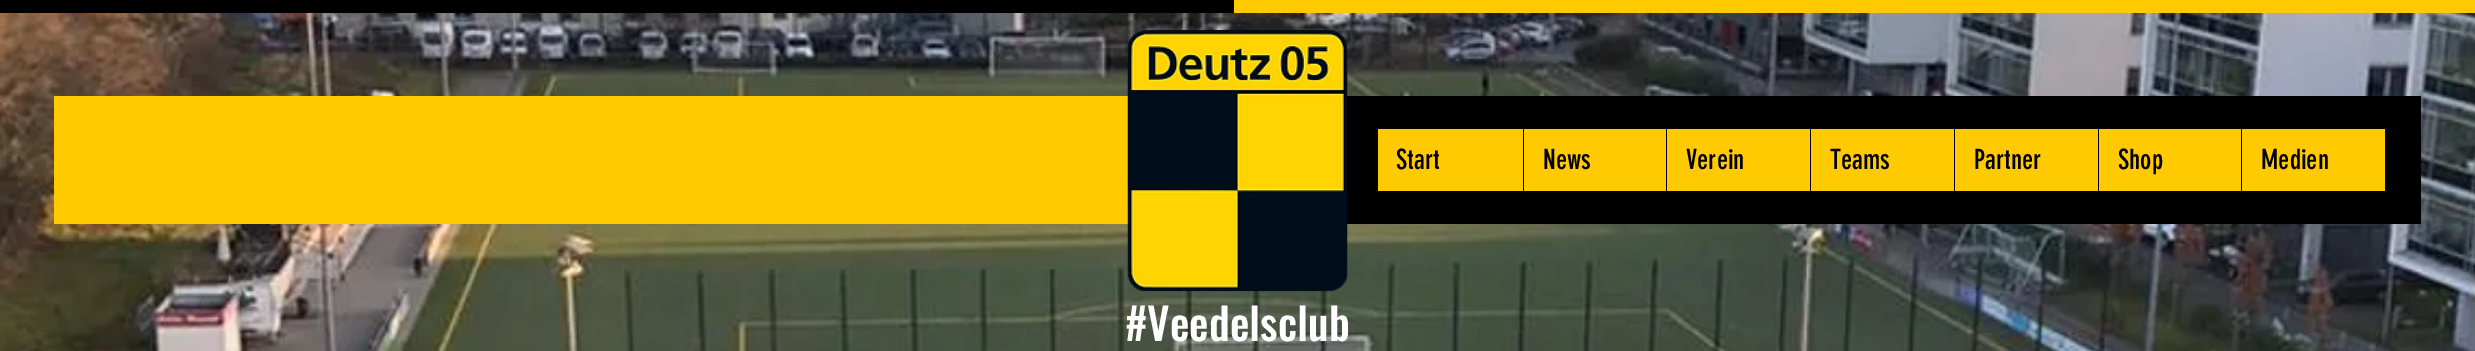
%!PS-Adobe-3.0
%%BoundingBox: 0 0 2475 351
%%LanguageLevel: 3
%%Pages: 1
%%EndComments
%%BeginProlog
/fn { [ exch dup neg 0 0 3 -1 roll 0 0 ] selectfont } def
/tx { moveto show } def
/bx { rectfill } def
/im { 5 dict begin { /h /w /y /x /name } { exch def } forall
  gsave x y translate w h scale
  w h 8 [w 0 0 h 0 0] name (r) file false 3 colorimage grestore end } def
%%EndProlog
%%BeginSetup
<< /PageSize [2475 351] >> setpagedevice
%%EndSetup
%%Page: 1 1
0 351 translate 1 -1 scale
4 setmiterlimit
1 setgray
0 0 2475 351 bx
0 setgray
0 0 1234 13 bx
1 0.796 0 setrgbcolor
1234 0 1241 13 bx
(image0.raw) 0 13 2475 338 im
54 96 1075 128 bx
0 setgray
1346 96 1075 128 bx
(image1.raw) 1127 30 221 262 im
1 0.796 0 setrgbcolor
1378 129 1007 62 bx
/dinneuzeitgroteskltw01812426-Regular 27.5 fn
0 setgray
(Start) 1396 169 tx
1523 129 1 62 bx
(News) 1543 169 tx
1666 129 1 62 bx
(Verein) 1686 169 tx
1810 129 1 62 bx
(Teams) 1830 169 tx
1954 129 1 62 bx
(Partner) 1974 169 tx
2098 129 1 62 bx
(Shop) 2118 169 tx
2241 129 1 62 bx
(Medien) 2261 169 tx
/Oswald-Medium 43.75 fn
1 setgray
(#Veedelsclub) 1125 341 tx
showpage
%%EOF
